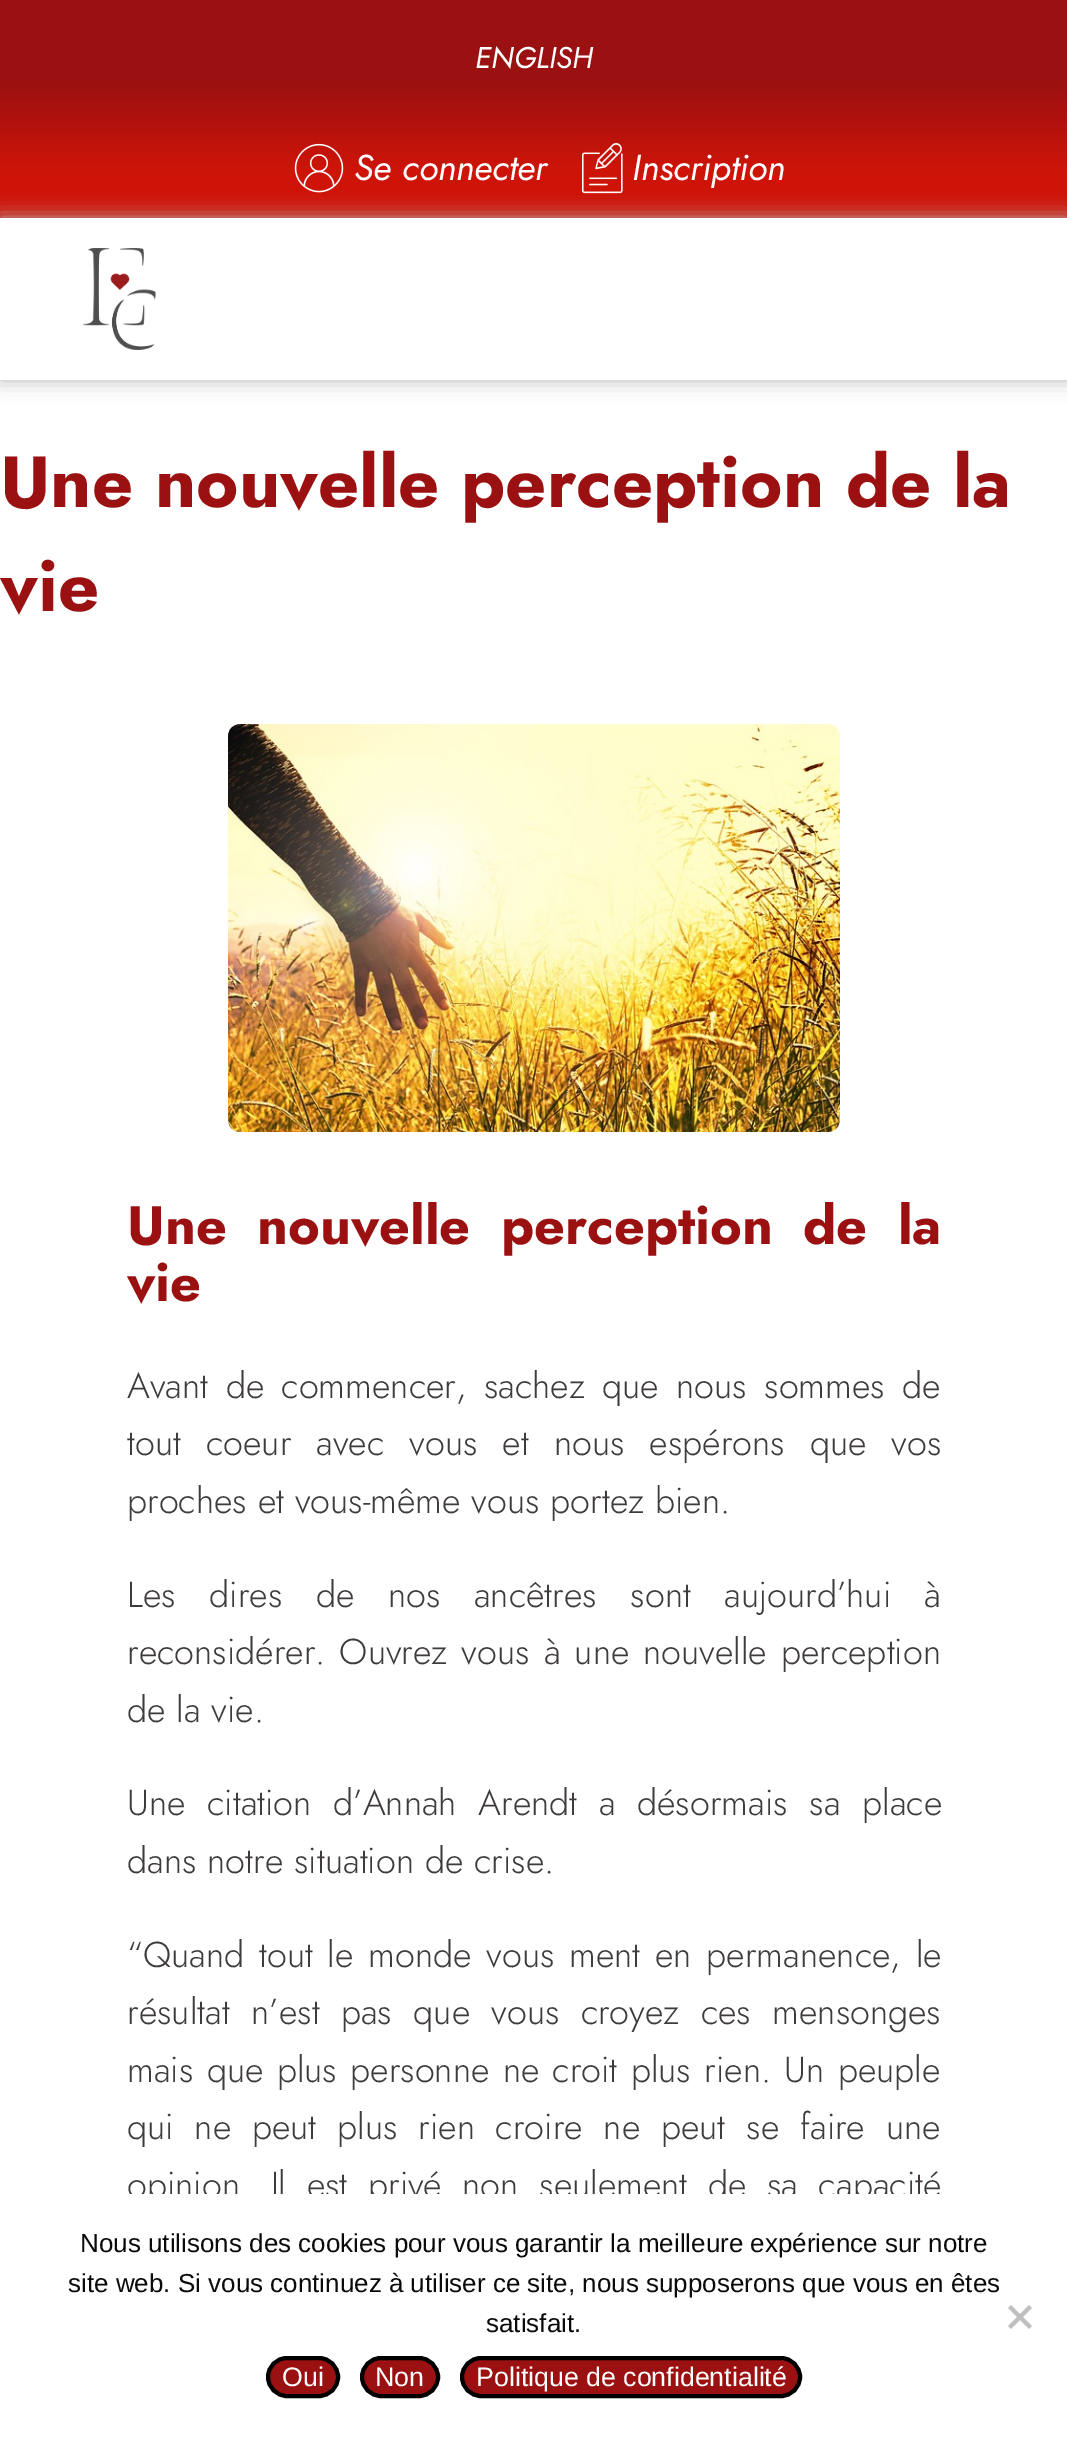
%!PS-Adobe-3.0
%%BoundingBox: 0 0 1067 2437
%%LanguageLevel: 3
%%Pages: 1
%%EndComments
%%BeginProlog
/m { moveto } bind def
/l { lineto } bind def
/h { closepath } bind def
/f { fill } bind def
/S { stroke } bind def
/q { gsave } bind def
/Q { grestore } bind def
/w { setlinewidth } bind def
/fn { [ exch dup neg 0 0 3 -1 roll 0 0 ] selectfont } def
/tx { moveto show } def
/bx { rectfill } def
/al { dup .setfillconstantalpha .setstrokeconstantalpha } def
/rr { 5 dict begin { /r /h /w /y /x } { exch def } forall
  x r add y moveto x w add y 2 copy h add r arct x w add y h add x 1 index r arct
  x y h add x y r arct x y 2 copy exch w add exch r arct closepath end } def
/sh { 12 dict begin { /a /b /q /h /w /y /x } { exch def } forall gsave /was 0 def
  9 -2 -9 { dup b mul 4 div /e exch def 1 sub .425 mul 2.718 exch exp 1 add a .99 .min exch div /now exch def
    1 1 now sub 1 was sub div sub al /was now def
    w h .min e 2 mul add 0 gt { x e sub y e sub w e 2 mul add h e 2 mul add
      q e add b .6 mul add w h .min 2 div e add .min 0 .max rr fill } if } for grestore end } def
/im { 5 dict begin { /h /w /y /x /name } { exch def } forall
  gsave x y translate w h scale
  w h 8 [w 0 0 h 0 0] name (r) file false 3 colorimage grestore end } def
%%EndProlog
%%BeginSetup
<< /PageSize [1067 2437] /PageUsesTransparency true >> setpagedevice
%%EndSetup
%%Page: 1 1
0 .pushpdf14devicefilter
0 2437 translate 1 -1 scale
4 setmiterlimit
1 setgray
0 0 1067 2437 bx
q 0 0 m 1067 0 l 1067 218 l 0 218 l h clip newpath
<< /ShadingType 2 /ColorSpace /DeviceRGB /Coords [534 0 534 218] /Extend [true true] /Function << /FunctionType 3 /Domain [0 1] /Functions [<< /FunctionType 2 /Domain [0 1] /C0 [0.608 0.063 0.063] /C1 [0.608 0.063 0.063] /N 1 >> << /FunctionType 2 /Domain [0 1] /C0 [0.608 0.063 0.063] /C1 [0.808 0.078 0.031] /N 1 >> << /FunctionType 2 /Domain [0 1] /C0 [0.808 0.078 0.031] /C1 [0.808 0.078 0.031] /N 1 >>] /Bounds [0.38 0.78] /Encode [0 1 0 1 0 1] >> >> shfill Q
/Jost-Italic 30 fn
(ENGLISH) 475 68 tx
(image0.raw) 294 143 50 50 im
/Jost-Italic 36 fn
(Se connecter) 354 180 tx
(image1.raw) 582 143 41 51 im
(Inscription) 632 180 tx
q
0 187 m 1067 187 l 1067 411 l 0 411 l h 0 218 m 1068 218 l 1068 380 l 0 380 l h eoclip newpath
0.702 setgray
0 218 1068 162 0 10 1 sh
Q
(image2.raw) 83 248 73 102 im
/Jost-Bold 72 fn
0.608 0.063 0.063 setrgbcolor
(Une nouvelle perception de la) 0 507 tx
(vie) 0 611 tx
(image3.raw) 228 724 612 408 im
/Jost-Bold 54 fn
127 1244 m 14 0 32 (Une nouvelle perception de la) widthshow
(vie) 127 1301 tx
/Jost-Light 36 fn
0.247 0.231 0.239 setrgbcolor
127 1398 m 6.5 0 32 (Avant de commencer, sachez que nous sommes de) widthshow
127 1455 m 14.25 0 32 (tout coeur avec vous et nous espérons que vos) widthshow
(proches et vous-même vous portez bien.) 127 1513 tx
127 1607 m 22.75 0 32 (Les dires de nos ancêtres sont aujourd’hui à) widthshow
127 1664 m 3.25 0 32 (reconsidérer. Ouvrez vous à une nouvelle perception) widthshow
(de la vie.) 127 1722 tx
127 1815 m 10.75 0 32 (Une citation d’Annah Arendt a désormais sa place) widthshow
(dans notre situation de crise.) 127 1873 tx
127 1967 m 4 0 32 (“Quand tout le monde vous ment en permanence, le) widthshow
127 2024 m 10.5 0 32 (résultat n’est pas que vous croyez ces mensonges) widthshow
127 2082 m 2.5 0 32 (mais que plus personne ne croit plus rien. Un peuple) widthshow
127 2139 m 10 0 32 (qui ne peut plus rien croire ne peut se faire une) widthshow
127 2197 m 9.75 0 32 (opinion. Il est privé non seulement de sa capacité) widthshow
1 setgray
130 2194 809 11 bx
/LiberationSans-Regular 26 fn
0.039 setgray
(Nous utilisons des cookies pour vous garantir la meilleure expérience sur notre) 80 2252 tx
(site web. Si vous continuez à utiliser ce site, nous supposerons que vous en êtes) 68 2292 tx
(satisfait.) 486 2332 tx
0.753 setgray
1029 2305 m 1032 2308 l 1011 2329 l 1008 2326 l h f
1008 2308 m 1011 2305 l 1032 2326 l 1029 2329 l h f
0.608 0.063 0.063 setrgbcolor
268 2358 70 38 19 rr q f Q
0 setgray
4 w
S
/LiberationSans-Regular 26.75 fn
1 setgray
(Oui) 282 2386 tx
0.608 0.063 0.063 setrgbcolor
362 2358 76 38 19 rr q f Q
0 setgray
S
1 setgray
(Non) 375 2386 tx
0.608 0.063 0.063 setrgbcolor
462 2358 338 38 19 rr q f Q
0 setgray
S
1 setgray
(Politique de confidentialité) 476 2386 tx
.poppdf14devicefilter showpage
%%EOF
